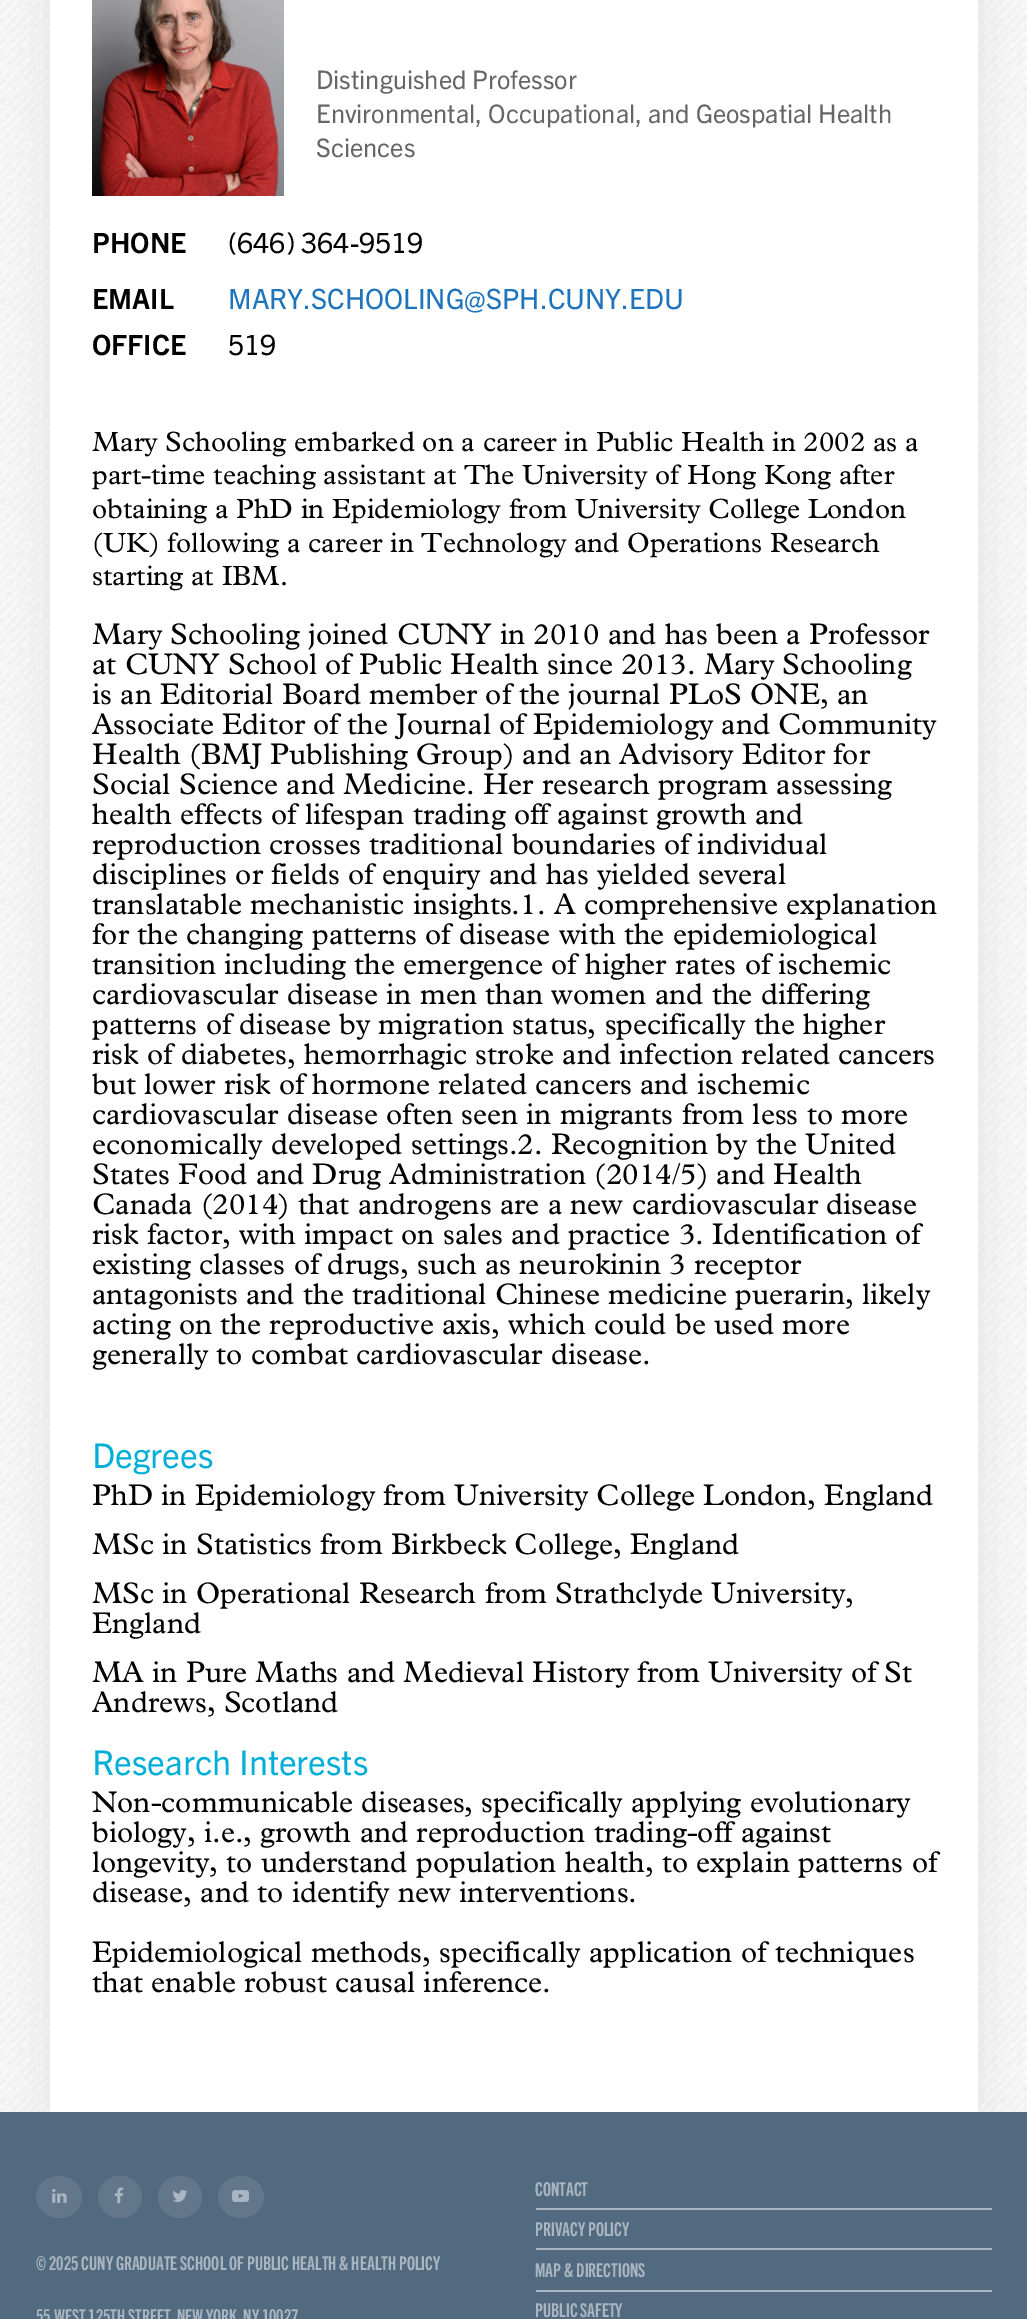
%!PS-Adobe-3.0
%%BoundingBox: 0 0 1027 2319
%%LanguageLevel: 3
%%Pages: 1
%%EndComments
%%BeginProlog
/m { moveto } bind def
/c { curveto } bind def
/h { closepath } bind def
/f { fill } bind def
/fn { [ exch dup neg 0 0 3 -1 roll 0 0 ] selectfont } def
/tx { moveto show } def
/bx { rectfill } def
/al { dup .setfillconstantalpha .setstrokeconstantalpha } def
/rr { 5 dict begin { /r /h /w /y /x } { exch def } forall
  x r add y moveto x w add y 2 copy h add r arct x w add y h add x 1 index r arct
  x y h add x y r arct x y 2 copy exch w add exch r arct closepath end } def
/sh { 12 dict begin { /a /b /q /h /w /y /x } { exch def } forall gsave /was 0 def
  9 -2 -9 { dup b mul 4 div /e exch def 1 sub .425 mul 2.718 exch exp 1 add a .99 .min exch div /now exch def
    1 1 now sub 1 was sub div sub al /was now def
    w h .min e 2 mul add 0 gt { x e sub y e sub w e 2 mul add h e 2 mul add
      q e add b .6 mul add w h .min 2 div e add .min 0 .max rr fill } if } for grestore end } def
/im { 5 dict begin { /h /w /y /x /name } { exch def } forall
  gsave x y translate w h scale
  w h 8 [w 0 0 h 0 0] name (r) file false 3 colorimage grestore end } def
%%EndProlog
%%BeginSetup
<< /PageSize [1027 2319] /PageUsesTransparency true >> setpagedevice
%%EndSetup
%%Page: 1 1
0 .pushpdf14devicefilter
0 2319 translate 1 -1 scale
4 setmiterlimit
1 setgray
0 0 1027 2319 bx
(image0.raw) 0 0 1027 2112 im
0.871 setgray
50 -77 928 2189 0 25.5 0.8 sh
1 setgray
50 0 928 2112 bx
(image1.raw) 92 0 192 196 im
/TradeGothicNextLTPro-Regular 25.6 fn
0.4 setgray
(Distinguished Professor) 316 89 tx
(Environmental, Occupational, and Geospatial Health) 316 123 tx
(Sciences) 316 157 tx
/TradeGothicNextLTPro-Bold 28 fn
0 setgray
(PHONE) 92 253 tx
/TradeGothicNextLTPro-Regular 28 fn
(\(646\) 364-9519) 228 253 tx
/TradeGothicNextLTPro-Bold 28 fn
(EMAIL) 92 309 tx
/TradeGothicNextLTPro-Regular 28 fn
0.122 0.459 0.741 setrgbcolor
(MARY.SCHOOLING@SPH.CUNY.EDU) 228 309 tx
/TradeGothicNextLTPro-Bold 28 fn
0 setgray
(OFFICE) 92 355 tx
/TradeGothicNextLTPro-Regular 28 fn
(519) 228 355 tx
/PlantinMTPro-Regular 28 fn
(Mary Schooling embarked on a career in Public Health in 2002 as a) 92 451 tx
(part-time teaching assistant at The University of Hong Kong after) 92 484 tx
(obtaining a PhD in Epidemiology from University College London) 92 518 tx
(\(UK\) following a career in Technology and Operations Research) 92 552 tx
(starting at IBM.) 92 585 tx
/PlantinMTPro-Regular 29.9 fn
(Mary Schooling joined CUNY in 2010 and has been a Professor) 92 644 tx
(at CUNY School of Public Health since 2013. Mary Schooling) 92 674 tx
(is an Editorial Board member of the journal PLoS ONE, an) 92 704 tx
(Associate Editor of the Journal of Epidemiology and Community) 92 734 tx
(Health \(BMJ Publishing Group\) and an Advisory Editor for) 92 764 tx
(Social Science and Medicine. Her research program assessing) 92 794 tx
(health effects of lifespan trading off against growth and) 92 824 tx
(reproduction crosses traditional boundaries of individual) 92 854 tx
(disciplines or fields of enquiry and has yielded several) 92 884 tx
(translatable mechanistic insights.1. A comprehensive explanation) 92 914 tx
(for the changing patterns of disease with the epidemiological) 92 944 tx
(transition including the emergence of higher rates of ischemic) 92 974 tx
(cardiovascular disease in men than women and the differing) 92 1004 tx
(patterns of disease by migration status, specifically the higher) 92 1034 tx
(risk of diabetes, hemorrhagic stroke and infection related cancers) 92 1064 tx
(but lower risk of hormone related cancers and ischemic) 92 1094 tx
(cardiovascular disease often seen in migrants from less to more) 92 1124 tx
(economically developed settings.2. Recognition by the United) 92 1154 tx
(States Food and Drug Administration \(2014/5\) and Health) 92 1184 tx
(Canada \(2014\) that androgens are a new cardiovascular disease) 92 1214 tx
(risk factor, with impact on sales and practice 3. Identification of) 92 1244 tx
(existing classes of drugs, such as neurokinin 3 receptor) 92 1274 tx
(antagonists and the traditional Chinese medicine puerarin, likely) 92 1304 tx
(acting on the reproductive axis, which could be used more) 92 1334 tx
(generally to combat cardiovascular disease.) 92 1364 tx
/TradeGothicNextLTPro-Regular 34.25 fn
0 0.682 0.847 setrgbcolor
(Degrees) 92 1468 tx
/PlantinMTPro-Regular 29.9 fn
0 setgray
(PhD in Epidemiology from University College London, England) 92 1505 tx
(MSc in Statistics from Birkbeck College, England) 92 1554 tx
(MSc in Operational Research from Strathclyde University,) 92 1603 tx
(England) 92 1633 tx
(MA in Pure Maths and Medieval History from University of St) 92 1682 tx
(Andrews, Scotland) 92 1712 tx
/TradeGothicNextLTPro-Regular 34.25 fn
0 0.682 0.847 setrgbcolor
(Research Interests) 92 1775 tx
/PlantinMTPro-Regular 29.9 fn
0 setgray
(Non-communicable diseases, specifically applying evolutionary) 92 1812 tx
(biology, i.e., growth and reproduction trading-off against) 92 1842 tx
(longevity, to understand population health, to explain patterns of) 92 1872 tx
(disease, and to identify new interventions.) 92 1902 tx
(Epidemiological methods, specifically application of techniques) 92 1962 tx
(that enable robust causal inference.) 92 1992 tx
0.322 0.416 0.502 setrgbcolor
0 2112 1027 207 bx
0.384 0.467 0.545 setrgbcolor
59 2176 m 71.5 2176 82 2185.5 82 2197 c 82 2208.5 71.5 2218 59 2218 c 46.5 2218 36 2208.5 36 2197 c 36 2185.5 46.5 2176 59 2176 c h f
(image2.raw) 52 2189 15 14 im
98 2176 44 42 21 rr f
(image3.raw) 114 2187 10 17 im
158 2176 44 42 21 rr f
(image4.raw) 172 2190 16 13 im
241 2176 m 253.5 2176 264 2185.5 264 2197 c 264 2208.5 253.5 2218 241 2218 c 228.5 2218 218 2208.5 218 2197 c 218 2185.5 228.5 2176 241 2176 c h f
(image5.raw) 232 2190 18 12 im
/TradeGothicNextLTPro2-Bold 19.2 fn
0.663 0.71 0.753 setrgbcolor
(© 2025 CUNY GRADUATE SCHOOL OF PUBLIC HEALTH & HEALTH POLICY) 36 2270 tx
(55 WEST 125TH STREET, NEW YORK, NY 10027) 36 2323 tx
536 2208 456 2 bx
(CONTACT) 535 2196 tx
536 2248 456 2 bx
(PRIVACY POLICY) 535 2236 tx
536 2290 456 2 bx
(MAP & DIRECTIONS) 535 2277 tx
(PUBLIC SAFETY) 535 2317 tx
.poppdf14devicefilter showpage
%%EOF
